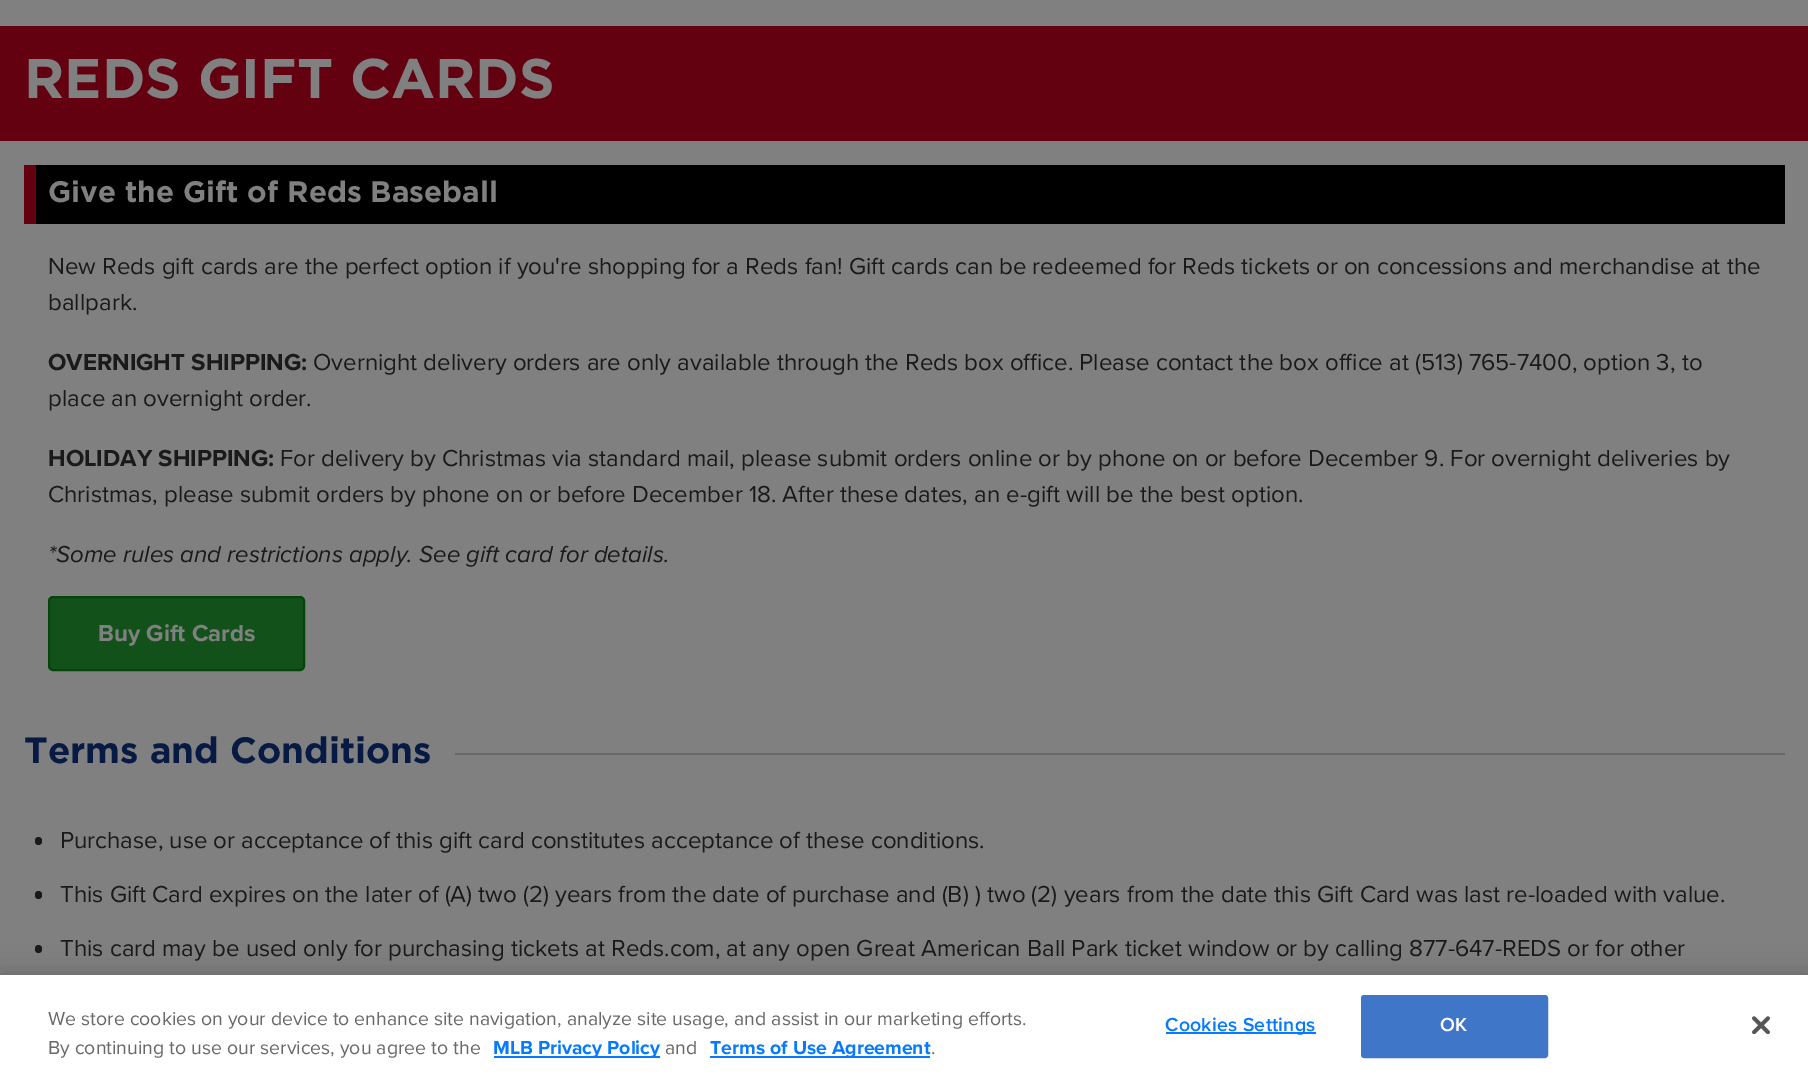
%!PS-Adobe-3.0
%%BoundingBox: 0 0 1808 1081
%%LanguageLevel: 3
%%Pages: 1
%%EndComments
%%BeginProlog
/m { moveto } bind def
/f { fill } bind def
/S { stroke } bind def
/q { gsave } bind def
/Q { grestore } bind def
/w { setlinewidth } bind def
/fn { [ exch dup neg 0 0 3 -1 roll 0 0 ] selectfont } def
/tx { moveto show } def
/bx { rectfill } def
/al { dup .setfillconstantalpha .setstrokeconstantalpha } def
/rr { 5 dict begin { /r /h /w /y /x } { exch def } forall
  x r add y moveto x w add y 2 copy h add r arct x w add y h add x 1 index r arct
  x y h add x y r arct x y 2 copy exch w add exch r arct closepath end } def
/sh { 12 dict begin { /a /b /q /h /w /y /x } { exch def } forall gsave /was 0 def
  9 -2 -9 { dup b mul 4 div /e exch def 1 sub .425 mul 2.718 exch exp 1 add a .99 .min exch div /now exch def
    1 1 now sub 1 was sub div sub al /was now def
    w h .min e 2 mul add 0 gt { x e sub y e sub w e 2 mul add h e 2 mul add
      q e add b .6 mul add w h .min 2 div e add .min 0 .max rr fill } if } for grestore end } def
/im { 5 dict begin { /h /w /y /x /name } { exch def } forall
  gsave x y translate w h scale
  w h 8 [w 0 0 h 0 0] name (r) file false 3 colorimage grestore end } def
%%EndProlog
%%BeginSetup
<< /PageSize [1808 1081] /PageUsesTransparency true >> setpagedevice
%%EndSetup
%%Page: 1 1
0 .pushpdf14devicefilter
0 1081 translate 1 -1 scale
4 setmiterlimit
0.502 setgray
0 0 1808 1081 bx
0.388 0.004 0.063 setrgbcolor
0 26 1808 115 bx
/Gotham-Bold 55.75 fn
0.502 setgray
(REDS GIFT CARDS) 24 98 tx
0 setgray
36 165 1749 59 bx
0.388 0.004 0.063 setrgbcolor
24 165 12 59 bx
/Gotham-Bold 29.6 fn
0.502 setgray
(Give the Gift of Reds Baseball) 48 202 tx
/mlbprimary-Regular 24 fn
0.102 setgray
(New Reds gift cards are the perfect option if you're shopping for a Reds fan! Gift cards can be redeemed for Reds tickets or on concessions and merchandise at the) 48 274 tx
(ballpark.) 48 310 tx
/mlbprimary-Bold 24 fn
(OVERNIGHT SHIPPING:) 48 370 tx
/mlbprimary-Regular 24 fn
(Overnight delivery orders are only available through the Reds box office. Please contact the box office at \(513\) 765-7400, option 3, to) 313 370 tx
(place an overnight order.) 48 406 tx
/mlbprimary-Bold 24 fn
(HOLIDAY SHIPPING:) 48 466 tx
/mlbprimary-Regular 24 fn
(For delivery by Christmas via standard mail, please submit orders online or by phone on or before December 9. For overnight deliveries by) 280 466 tx
(Christmas, please submit orders by phone on or before December 18. After these dates, an e-gift will be the best option.) 48 502 tx
/mlbprimary-Italic 24 fn
(*Some rules and restrictions apply. See gift card for details.) 48 562 tx
0.071 0.318 0.102 setrgbcolor
49 597 255 73 4 rr q f Q
0.012 0.271 0.043 setrgbcolor
2 w
S
/mlbprimary-Bold 24 fn
0.502 setgray
(Buy Gift Cards) 98 641 tx
/Gotham-Bold 36.6 fn
0.027 0.102 0.263 setrgbcolor
(Terms and Conditions) 24 763 tx
0.412 setgray
455 753 1330 2 bx
0.102 setgray
35 837 7 8 3.5 rr f
/mlbprimary-Regular 24 fn
(Purchase, use or acceptance of this gift card constitutes acceptance of these conditions.) 60 848 tx
35 891 7 8 3.5 rr f
(This Gift Card expires on the later of \(A\) two \(2\) years from the date of purchase and \(B\) \) two \(2\) years from the date this Gift Card was last re-loaded with value.) 60 902 tx
35 945 7 8 3.5 rr f
(This card may be used only for purchasing tickets at Reds.com, at any open Great American Ball Park ticket window or by calling 877-647-REDS or for other) 60 956 tx
0 setgray
0 975 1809 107 0 13.5 0.2 sh
1 setgray
0 975 1808 106 bx
/mlbprimary-Regular 19.5 fn
0.412 setgray
(We store cookies on your device to enhance site navigation, analyze site usage, and assist in our marketing efforts.) 48 1025 tx
(By continuing to use our services, you agree to the) 48 1054 tx
0.02 0.478 1 setrgbcolor
494 1056 166 2 bx
/mlbprimary-Bold 19.5 fn
(MLB Privacy Policy) 493 1054 tx
/mlbprimary-Regular 19.5 fn
0.412 setgray
(and) 665 1054 tx
0.02 0.478 1 setrgbcolor
710 1056 220 2 bx
/mlbprimary-Bold 19.5 fn
(Terms of Use Agreement) 710 1054 tx
/mlbprimary-Regular 19.5 fn
0.412 setgray
(.) 931 1054 tx
0.02 0.478 1 setrgbcolor
1166 1032 150 2 bx
/ProximaNova-SemiBold 19.5 fn
1165 1031 m 0.25 0 (Cookies Settings) ashow
0.251 0.463 0.78 setrgbcolor
1362 996 185 61 2 rr q f Q
S
1 setgray
1440 1031 m 0.25 0 (OK) ashow
(image0.raw) 1752 1016 18 18 im
.poppdf14devicefilter showpage
%%EOF
